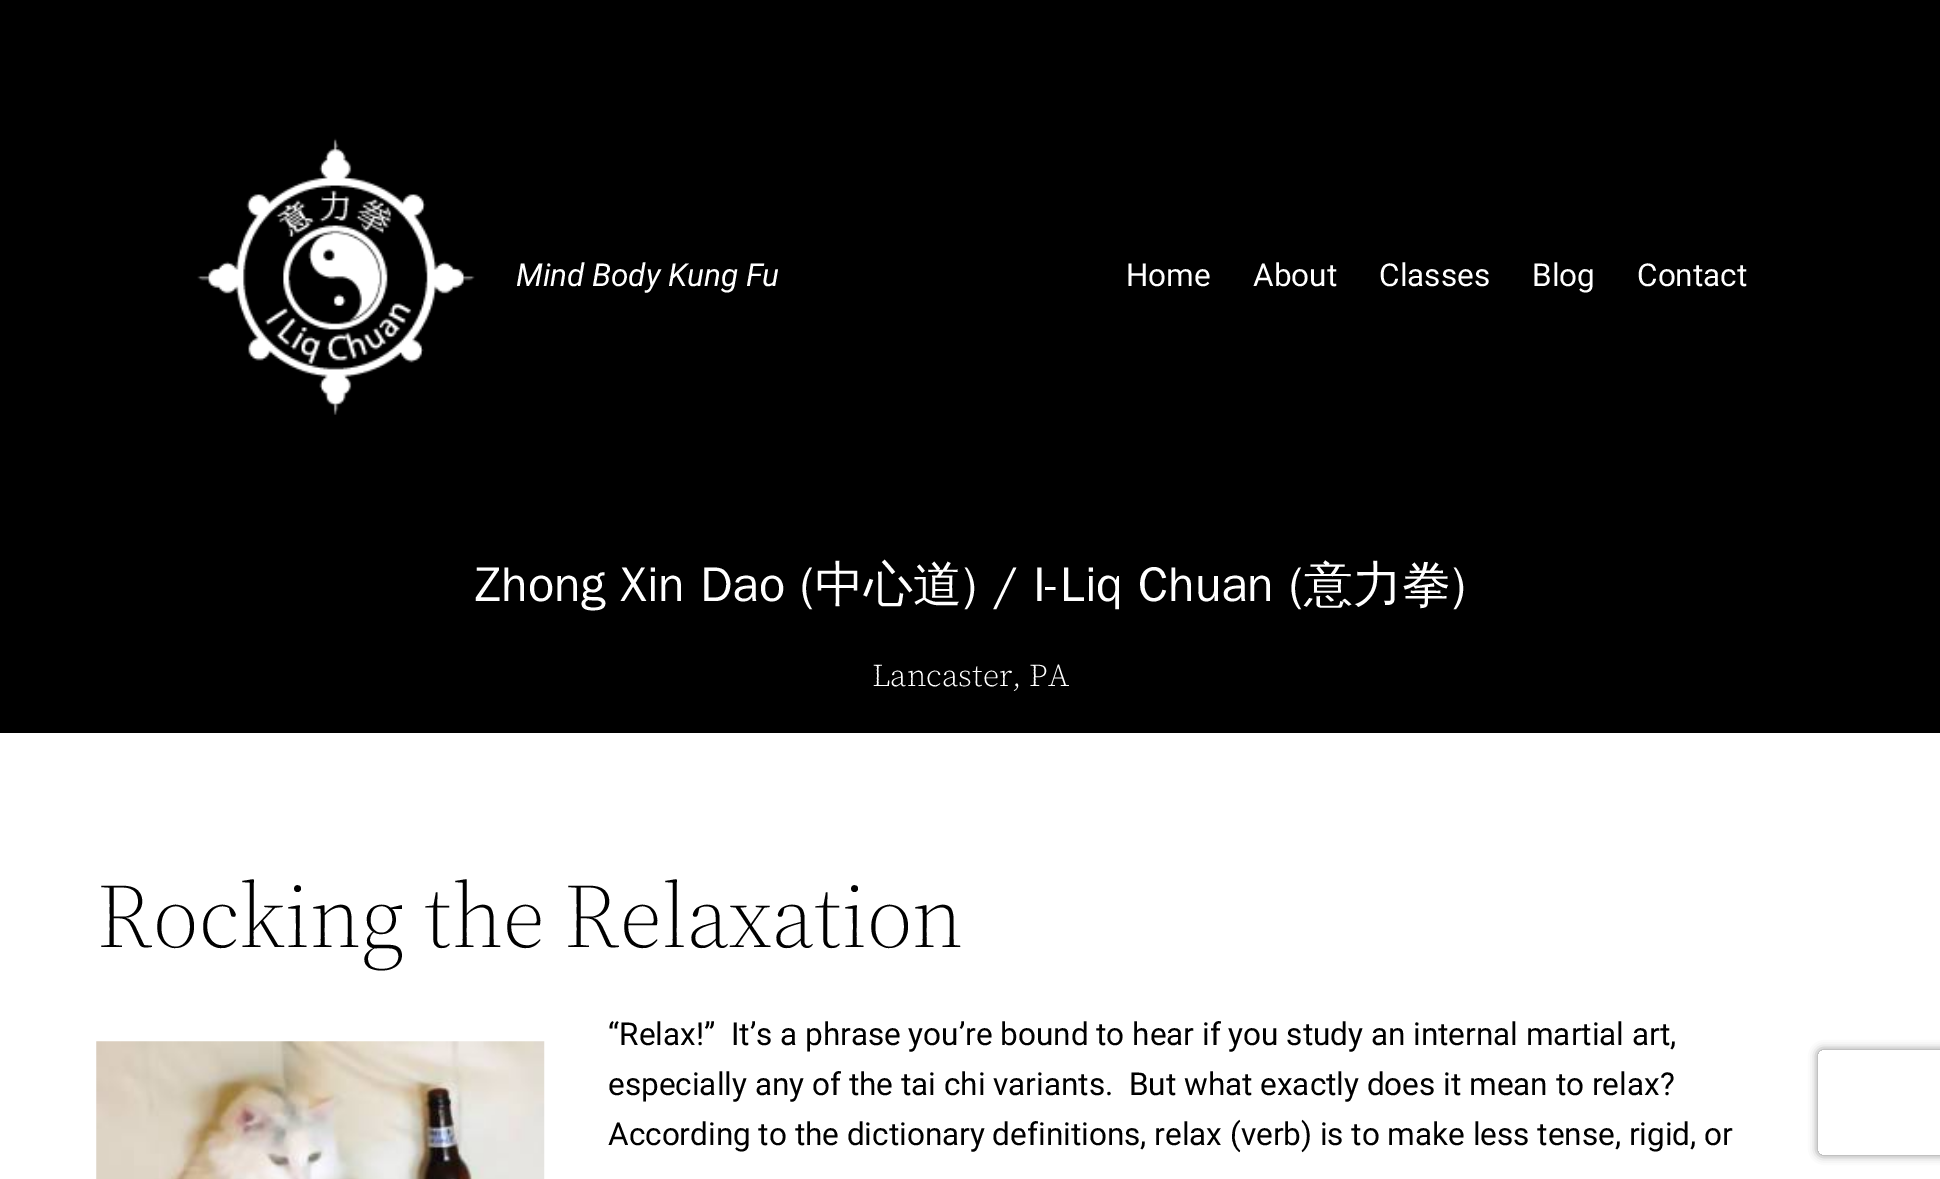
%!PS-Adobe-3.0
%%BoundingBox: 0 0 1940 1179
%%LanguageLevel: 3
%%Pages: 1
%%EndComments
%%BeginProlog
/m { moveto } bind def
/l { lineto } bind def
/c { curveto } bind def
/h { closepath } bind def
/q { gsave } bind def
/Q { grestore } bind def
/fn { [ exch dup neg 0 0 3 -1 roll 0 0 ] selectfont } def
/tx { moveto show } def
/bx { rectfill } def
/al { dup .setfillconstantalpha .setstrokeconstantalpha } def
/rr { 5 dict begin { /r /h /w /y /x } { exch def } forall
  x r add y moveto x w add y 2 copy h add r arct x w add y h add x 1 index r arct
  x y h add x y r arct x y 2 copy exch w add exch r arct closepath end } def
/sh { 12 dict begin { /a /b /q /h /w /y /x } { exch def } forall gsave /was 0 def
  9 -2 -9 { dup b mul 4 div /e exch def 1 sub .425 mul 2.718 exch exp 1 add a .99 .min exch div /now exch def
    1 1 now sub 1 was sub div sub al /was now def
    w h .min e 2 mul add 0 gt { x e sub y e sub w e 2 mul add h e 2 mul add
      q e add b .6 mul add w h .min 2 div e add .min 0 .max rr fill } if } for grestore end } def
/im { 5 dict begin { /h /w /y /x /name } { exch def } forall
  gsave x y translate w h scale
  w h 8 [w 0 0 h 0 0] name (r) file false 3 colorimage grestore end } def
%%EndProlog
%%BeginSetup
<< /PageSize [1940 1179] /PageUsesTransparency true >> setpagedevice
%%EndSetup
%%Page: 1 1
0 .pushpdf14devicefilter
0 1179 translate 1 -1 scale
4 setmiterlimit
1 setgray
0 0 1940 1179 bx
0 setgray
0 0 1940 733 bx
(image0.raw) 197 138 278 277 im
/Roboto-Italic 31.5 fn
1 setgray
(Mind Body Kung Fu) 516 286 tx
/Roboto-Regular 31.5 fn
(Home) 1126 286 tx
(About) 1253 286 tx
(Classes) 1379 286 tx
(Blog) 1532 286 tx
(Contact) 1637 286 tx
/WenQuanYiZenHei-Medium 49 fn
475 601 m 0.5 0 32 (Zhong Xin Dao \(中心道\) / I-Liq Chuan \(意力拳\)) widthshow
/SourceSerif4-Light 31.5 fn
(Lancaster, PA) 872 686 tx
/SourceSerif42-Light 91 fn
0 setgray
(Rocking the Relaxation) 97 947 tx
(image1.raw) 96 1041 449 138 im
/Roboto-Regular 31.5 fn
(“Relax!”  It’s a phrase you’re bound to hear if you study an internal martial art,) 608 1045 tx
(especially any of the tai chi variants.  But what exactly does it mean to relax?) 608 1095 tx
(According to the dictionary definitions, relax \(verb\) is to make less tense, rigid, or) 608 1145 tx
q
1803 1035 m 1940 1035 l 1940 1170 l 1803 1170 l h 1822 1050 m 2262 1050 l 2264 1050 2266 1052 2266 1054 c 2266 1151 l 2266 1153 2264 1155 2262 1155 c 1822 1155 l 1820 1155 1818 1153 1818 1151 c 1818 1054 l 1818 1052 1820 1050 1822 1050 c h eoclip newpath
0.502 setgray
1818 1050 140 105 4 4.5 1 sh
Q
.poppdf14devicefilter showpage
%%EOF
